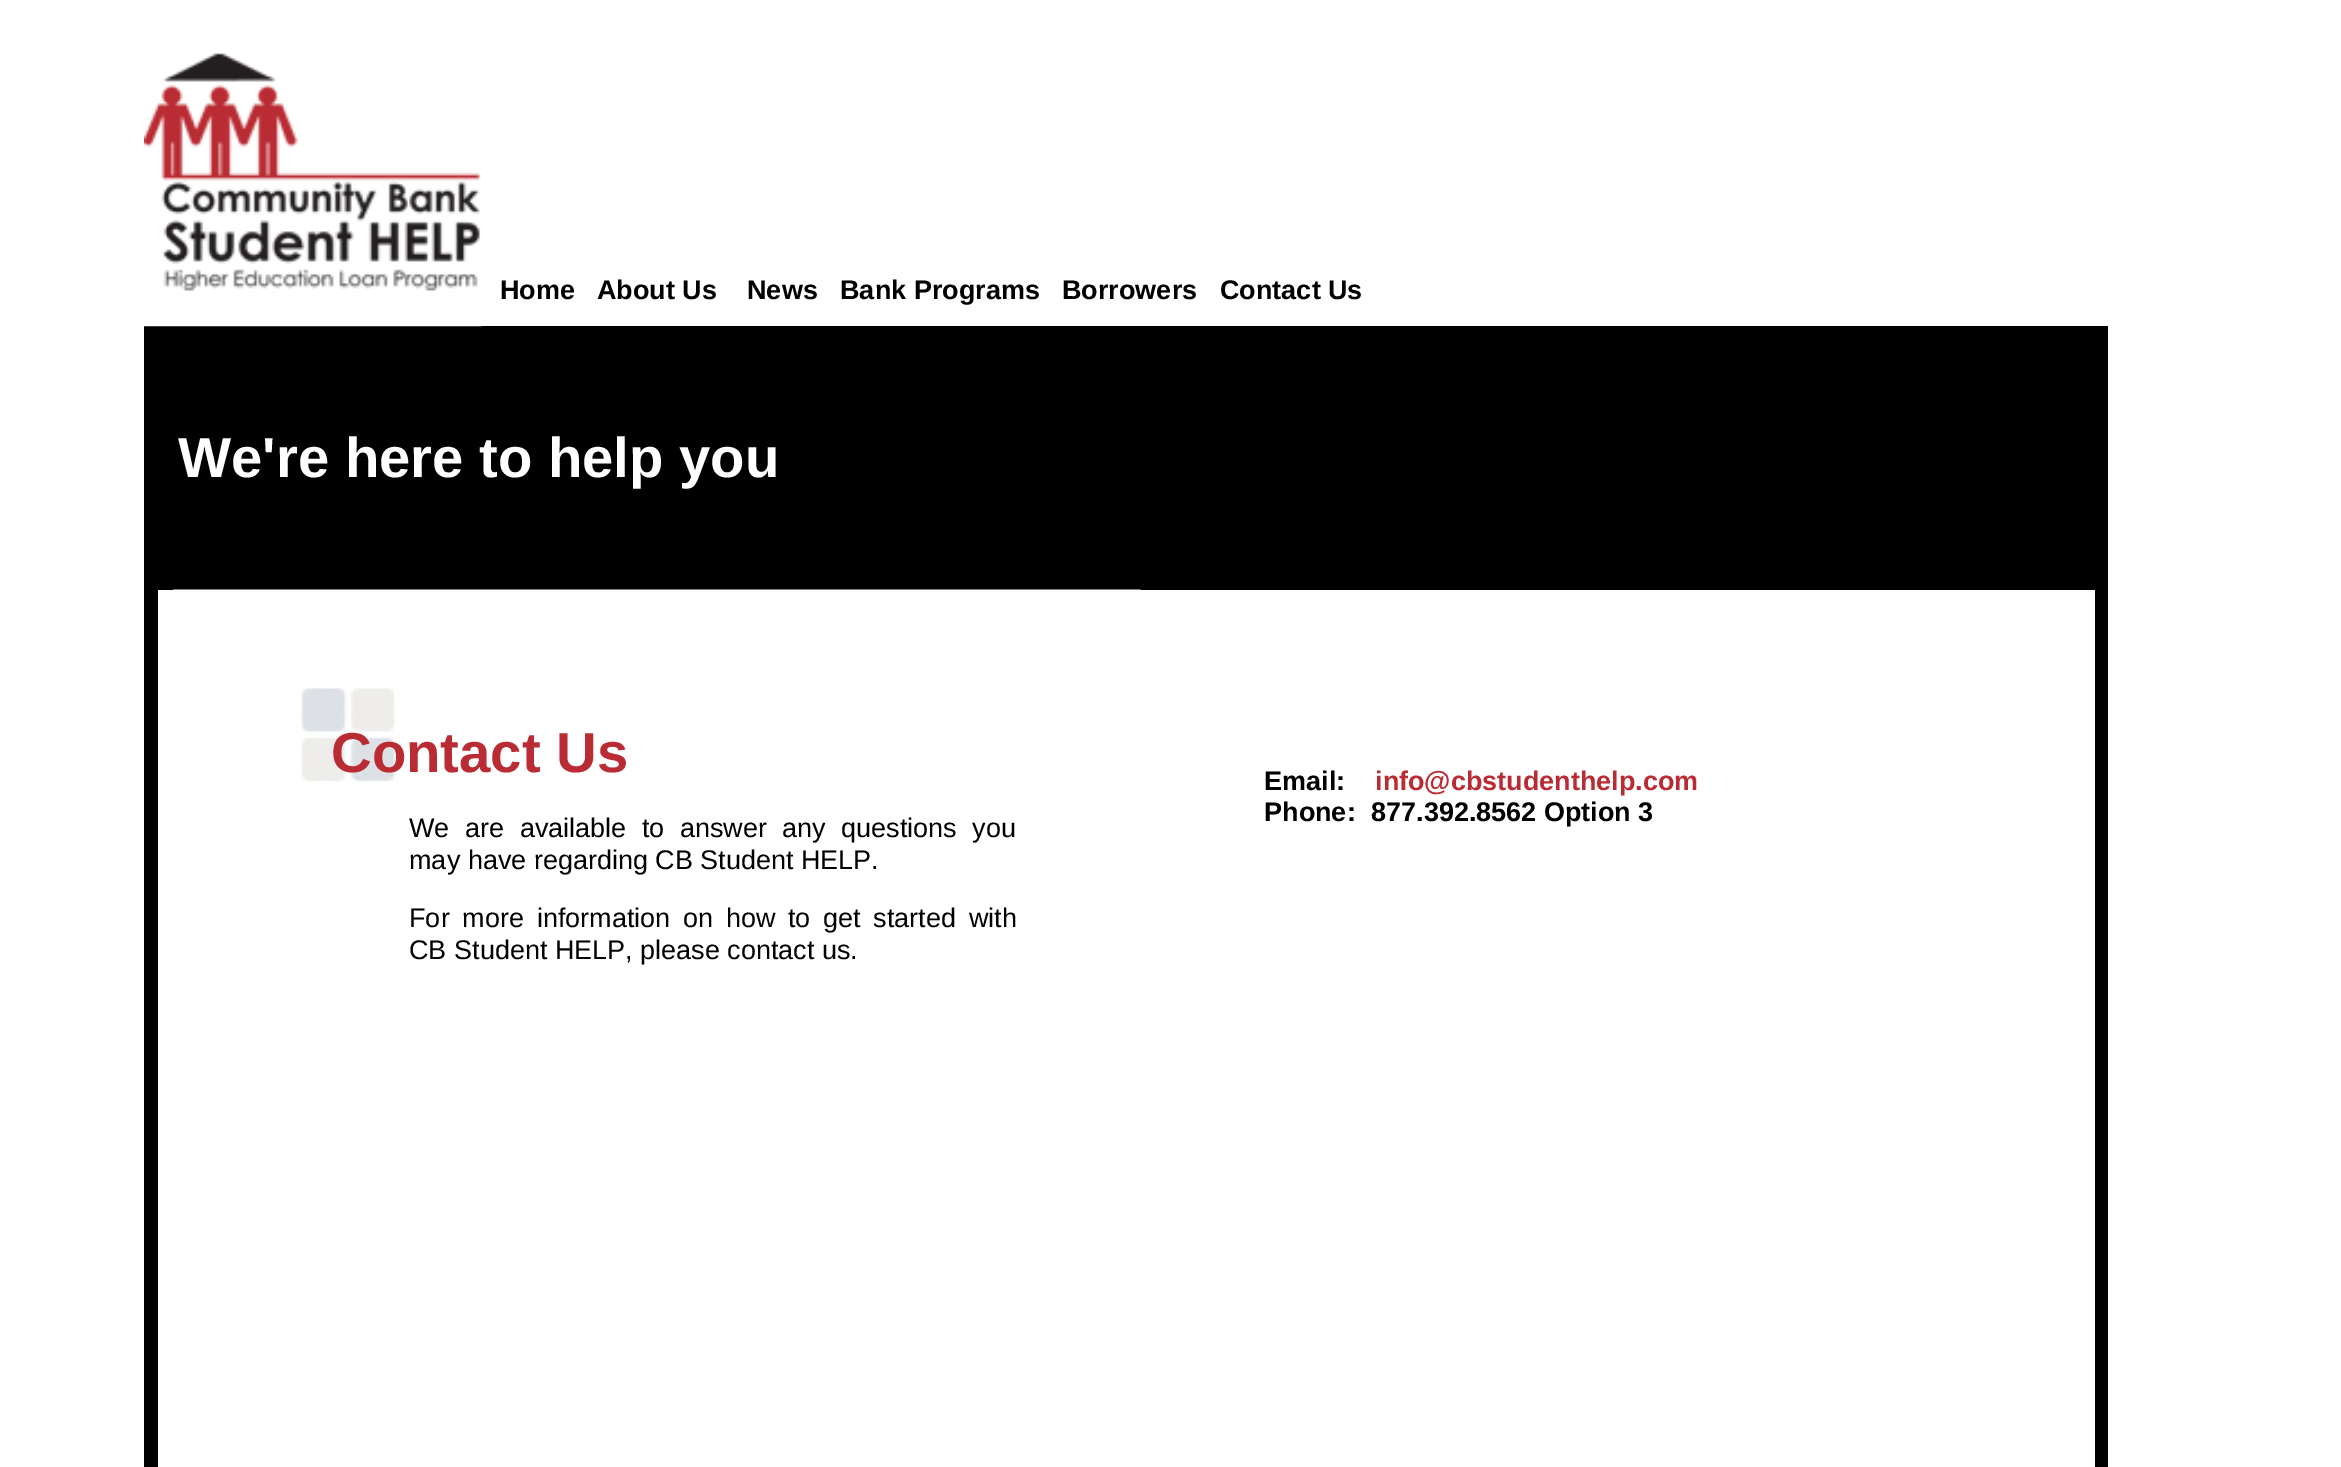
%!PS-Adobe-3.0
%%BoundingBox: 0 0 2341 1467
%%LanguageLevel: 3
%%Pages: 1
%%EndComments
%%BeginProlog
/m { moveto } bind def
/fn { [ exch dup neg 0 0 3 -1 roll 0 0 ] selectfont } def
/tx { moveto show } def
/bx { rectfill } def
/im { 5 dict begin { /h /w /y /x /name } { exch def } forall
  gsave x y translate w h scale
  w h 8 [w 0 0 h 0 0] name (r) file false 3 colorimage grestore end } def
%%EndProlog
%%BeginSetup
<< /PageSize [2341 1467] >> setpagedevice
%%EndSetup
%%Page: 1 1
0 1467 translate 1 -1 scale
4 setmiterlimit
1 setgray
0 0 2341 1467 bx
0 setgray
144 326 1964 264 bx
(image0.raw) 144 53 338 274 im
/LiberationSans-Bold 27 fn
(Home) 500 299 tx
(About Us) 597 299 tx
(News) 747 299 tx
(Bank Programs) 840 299 tx
(Borrowers) 1062 299 tx
(Contact Us) 1220 299 tx
/LiberationSans-Bold 56.25 fn
1 setgray
(We're here to help you) 178 477 tx
0 setgray
2095 590 13 877 bx
144 590 14 877 bx
(image1.raw) 173 589 968 193 im
0.729 0.173 0.2 setrgbcolor
(Contact Us) 331 772 tx
/LiberationSans-Bold 27 fn
0 setgray
(Email:) 1264 790 tx
0.729 0.173 0.2 setrgbcolor
(info@cbstudenthelp.com) 1375 790 tx
0 setgray
(Phone:) 1264 821 tx
(877.392.8562 Option 3) 1371 821 tx
/LiberationSans-Regular 27 fn
409 837 m 8 0 32 (We are available to answer any questions you) widthshow
(may have regarding CB Student HELP.) 409 869 tx
409 927 m 5.25 0 32 (For more information on how to get started with) widthshow
(CB Student HELP, please contact us.) 409 959 tx
showpage
%%EOF
